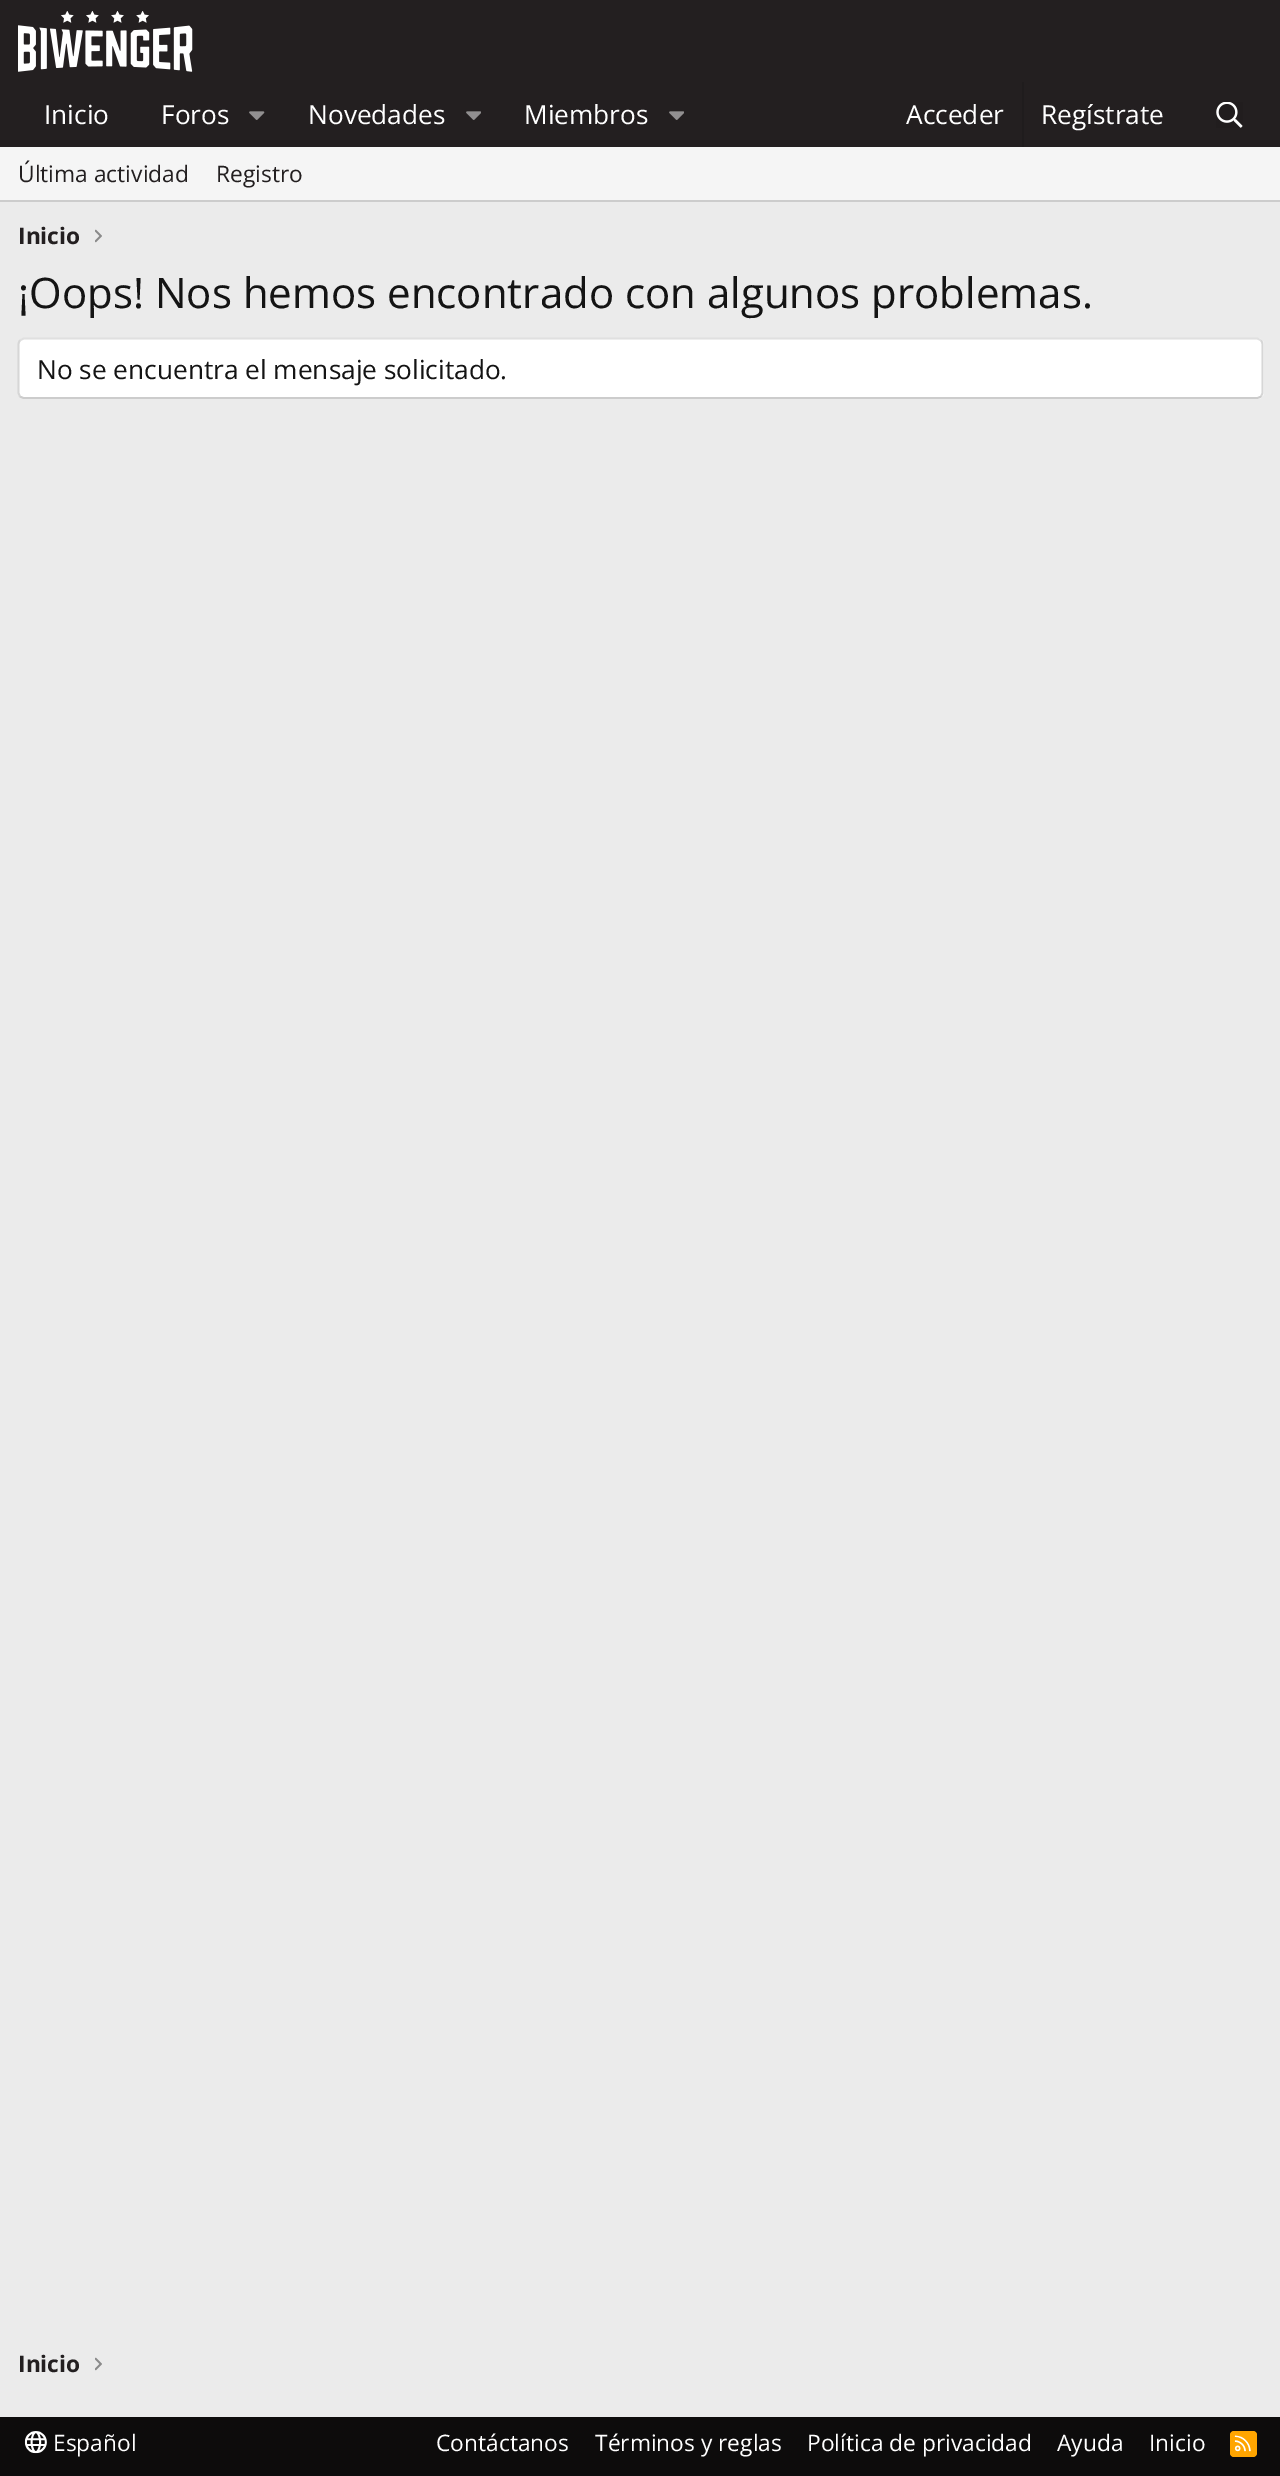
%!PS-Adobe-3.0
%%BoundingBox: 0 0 1280 2476
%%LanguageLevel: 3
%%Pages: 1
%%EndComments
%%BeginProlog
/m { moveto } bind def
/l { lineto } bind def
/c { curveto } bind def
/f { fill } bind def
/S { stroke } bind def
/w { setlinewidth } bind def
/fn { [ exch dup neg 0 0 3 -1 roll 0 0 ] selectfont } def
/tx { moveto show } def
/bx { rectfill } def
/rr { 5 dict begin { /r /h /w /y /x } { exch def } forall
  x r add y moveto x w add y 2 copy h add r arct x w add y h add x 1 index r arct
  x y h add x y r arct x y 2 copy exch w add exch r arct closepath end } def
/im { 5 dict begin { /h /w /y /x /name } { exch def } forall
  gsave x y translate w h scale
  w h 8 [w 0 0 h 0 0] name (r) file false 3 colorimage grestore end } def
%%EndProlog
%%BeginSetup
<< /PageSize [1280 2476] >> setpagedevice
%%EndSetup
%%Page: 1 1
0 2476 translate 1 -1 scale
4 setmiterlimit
0.922 setgray
0 0 1280 2476 bx
0.137 0.122 0.125 setrgbcolor
0 0 1280 147 bx
(image0.raw) 18 11 175 61 im
/OpenSans-Regular 26.25 fn
1 setgray
(Inicio) 44 124 tx
(Foros) 161 124 tx
(image1.raw) 249 111 16 9 im
(Novedades) 308 124 tx
(image2.raw) 466 111 15 9 im
(Miembros) 524 124 tx
(image2.raw) 669 111 15 9 im
(Acceder) 906 124 tx
0.122 0.11 0.114 setrgbcolor
1022 82 2 65 bx
1 setgray
(Regístrate) 1041 124 tx
(image3.raw) 1216 102 27 26 im
0.961 setgray
0 147 1280 53 bx
0.8 setgray
0 200 1280 2 bx
/OpenSans-Regular 22.75 fn
0.137 0.122 0.125 setrgbcolor
(Última actividad) 18 182 tx
(Registro) 216 182 tx
/OpenSans-Bold 22.75 fn
(Inicio) 18 244 tx
(image4.raw) 95 229 7 14 im
/OpenSans-Regular 42 fn
0.078 setgray
(¡Oops! Nos hemos encontrado con algunos problemas.) 18 308 tx
1 setgray
18 338 1246 61 7 rr f
0.878 setgray
1.8 w
20 340.5 m 21.5 339.5 23 338.5 24.5 338.5 c 1256.5 338.5 l 1258 338.5 1259.5 339.5 1261 340.5 c S
0.839 setgray
1261 340.5 m 1262 341.5 1262.5 343 1262.5 345 c 1262.5 392 l 1262.5 393.5 1262 395 1261 396.5 c S
0.8 setgray
1261 396.5 m 1259.5 397.5 1258 398 1256.5 398 c 24.5 398 l 23 398 21.5 397.5 20 396.5 c S
0.839 setgray
20 396.5 m 19 395 18.5 393.5 18.5 392 c 18.5 345 l 18.5 343 19 341.5 20 340.5 c S
/OpenSans-Regular 26.25 fn
0.078 setgray
(No se encuentra el mensaje solicitado.) 37 379 tx
/OpenSans-Bold 22.75 fn
0.137 0.122 0.125 setrgbcolor
(Inicio) 18 2372 tx
(image4.raw) 95 2357 7 14 im
0.051 0.047 0.047 setrgbcolor
0 2417 1280 59 bx
(image5.raw) 24 2431 23 23 im
/OpenSans-Regular 22.75 fn
1 setgray
(Español) 53 2451 tx
(Contáctanos) 436 2451 tx
(Términos y reglas) 595 2451 tx
(Política de privacidad) 807 2451 tx
(Ayuda) 1057 2451 tx
(Inicio) 1149 2451 tx
1 0.647 0 setrgbcolor
1230 2431 27 26 4 rr f
(image6.raw) 1234 2435 17 17 im
showpage
%%EOF
